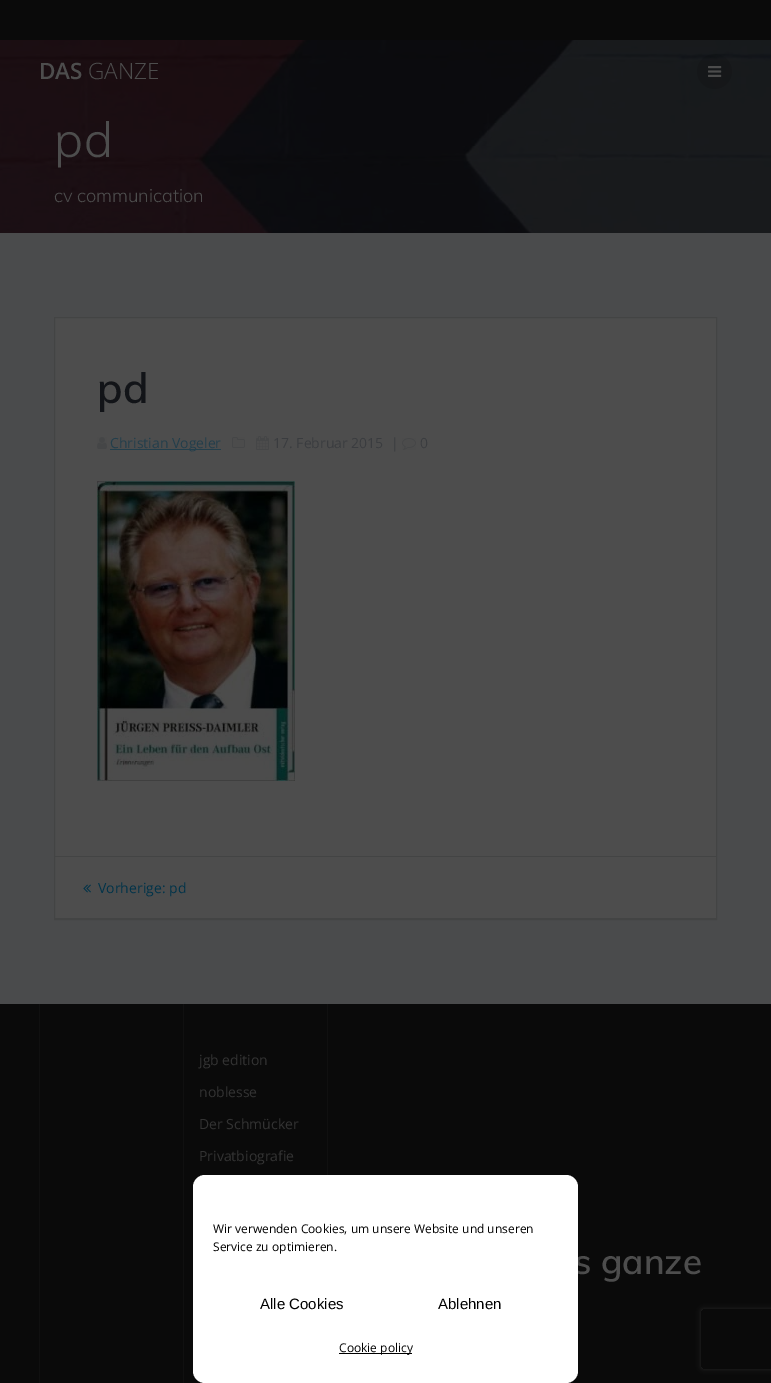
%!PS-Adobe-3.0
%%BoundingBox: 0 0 771 1383
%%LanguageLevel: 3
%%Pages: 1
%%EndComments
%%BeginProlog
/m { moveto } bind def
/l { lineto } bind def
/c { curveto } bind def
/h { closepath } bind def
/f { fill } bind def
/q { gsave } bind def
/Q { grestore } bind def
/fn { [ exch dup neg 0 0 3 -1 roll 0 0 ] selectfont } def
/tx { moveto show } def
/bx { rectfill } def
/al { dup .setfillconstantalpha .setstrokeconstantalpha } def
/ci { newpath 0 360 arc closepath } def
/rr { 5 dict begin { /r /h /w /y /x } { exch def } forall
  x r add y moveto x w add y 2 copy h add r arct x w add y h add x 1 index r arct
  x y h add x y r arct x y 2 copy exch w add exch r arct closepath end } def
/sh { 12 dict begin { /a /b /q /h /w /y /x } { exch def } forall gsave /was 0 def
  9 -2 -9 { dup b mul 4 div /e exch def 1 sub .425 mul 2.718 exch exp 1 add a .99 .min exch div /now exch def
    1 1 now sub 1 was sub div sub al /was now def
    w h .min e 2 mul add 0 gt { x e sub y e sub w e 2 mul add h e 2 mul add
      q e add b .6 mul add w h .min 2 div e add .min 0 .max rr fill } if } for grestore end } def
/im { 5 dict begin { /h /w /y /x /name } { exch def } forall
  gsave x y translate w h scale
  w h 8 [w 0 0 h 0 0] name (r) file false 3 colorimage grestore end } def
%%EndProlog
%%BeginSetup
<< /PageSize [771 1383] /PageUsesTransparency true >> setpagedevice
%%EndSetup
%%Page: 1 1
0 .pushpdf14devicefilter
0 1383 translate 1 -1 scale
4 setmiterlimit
1 setgray
0 0 771 1383 bx
0.039 setgray
0 0 771 40 bx
(image1.raw) 0 40 771 193 im
/OpenSans-SemiBold 22.5 fn
0.302 setgray
(DAS) 39 79 tx
/OpenSans-Light 22.5 fn
(GANZE) 88 79 tx
0.1 al
0 setgray
714.5 71.5 17.5 ci f
1 al
(image0.raw) 708 66 14 11 im
/Muli-Light 49 fn
0.302 setgray
54 157 m 1 0 (pd) ashow
/Muli-Light 18.25 fn
(cv communication) 54 202 tx
0.29 0.294 0.298 setrgbcolor
0 233 771 771 bx
0.302 setgray
55 318 661 600 bx
0.263 0.267 0.267 setrgbcolor
54.5 317.5 662 602 rectstroke
/Muli-SemiBold 42 fn
0.071 0.078 0.094 setrgbcolor
(pd) 97 403 tx
(image2.raw) 97 437 10 12 im
0.137 0.243 0.294 setrgbcolor
110 449 111 1 bx
/OpenSans-Regular 14 fn
(Christian Vogeler) 110 448 tx
(image3.raw) 232 437 13 11 im
(image4.raw) 256 436 13 14 im
0.227 0.235 0.247 setrgbcolor
(17. Februar 2015) 273 448 tx
(|) 391 448 tx
(image5.raw) 402 438 14 12 im
(0) 420 448 tx
(image6.raw) 97 481 198 300 im
0.263 0.267 0.267 setrgbcolor
55 856 661 1 bx
55 918 661 1 bx
(image7.raw) 83 884 8 9 im
0.004 0.2 0.286 setrgbcolor
(Vorherige: pd) 98 893 tx
0.039 setgray
0 1004 771 379 bx
0.063 setgray
39 1004 1 379 bx
183 1004 1 379 bx
0.2 setgray
(jgb edition) 199 1065 tx
(noblesse) 199 1097 tx
(Der Schmücker) 199 1129 tx
(Privatbiografie) 199 1161 tx
0.063 setgray
327 1004 1 171 bx
/Muli-SemiBold 35 fn
0.302 setgray
(s ganze) 574 1274 tx
0 setgray
193 1181 385 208 12 3 0.23 sh
1 setgray
193 1175 385 208 12 rr f
/OpenSans-Regular 12 fn
0 setgray
(Wir verwenden Cookies, um unsere Website und unseren) 213 1233 tx
(Service zu optimieren.) 213 1251 tx
/LiberationSans-Regular 15 fn
(Alle Cookies) 260 1309 tx
(Ablehnen) 438 1309 tx
339 1353 73 1 bx
/OpenSans-Regular 12 fn
(Cookie policy) 339 1352 tx
q
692 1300 m 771 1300 l 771 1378 l 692 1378 l h 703 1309 m 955 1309 l 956 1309 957 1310 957 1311 c 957 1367 l 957 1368 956 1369 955 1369 c 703 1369 l 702 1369 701 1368 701 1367 c 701 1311 l 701 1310 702 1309 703 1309 c h eoclip newpath
0.149 setgray
701 1309 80 60 2 2.5 1 sh
Q
.poppdf14devicefilter showpage
%%EOF
